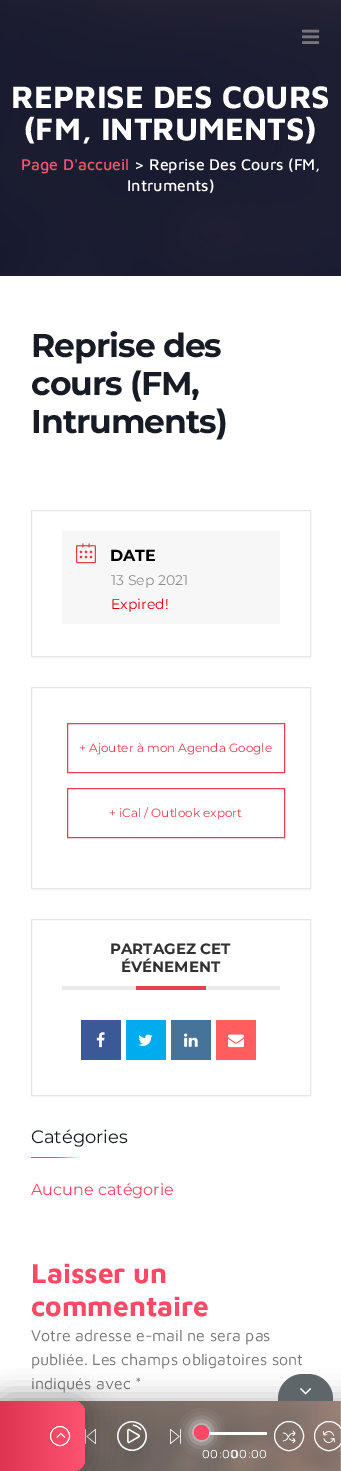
%!PS-Adobe-3.0
%%BoundingBox: 0 0 341 1471
%%LanguageLevel: 3
%%Pages: 1
%%EndComments
%%BeginProlog
/m { moveto } bind def
/l { lineto } bind def
/c { curveto } bind def
/h { closepath } bind def
/f { fill } bind def
/S { stroke } bind def
/q { gsave } bind def
/Q { grestore } bind def
/fn { [ exch dup neg 0 0 3 -1 roll 0 0 ] selectfont } def
/tx { moveto show } def
/bx { rectfill } def
/al { dup .setfillconstantalpha .setstrokeconstantalpha } def
/ci { newpath 0 360 arc closepath } def
/rr { 5 dict begin { /r /h /w /y /x } { exch def } forall
  x r add y moveto x w add y 2 copy h add r arct x w add y h add x 1 index r arct
  x y h add x y r arct x y 2 copy exch w add exch r arct closepath end } def
/sh { 12 dict begin { /a /b /q /h /w /y /x } { exch def } forall gsave /was 0 def
  9 -2 -9 { dup b mul 4 div /e exch def 1 sub .425 mul 2.718 exch exp 1 add a .99 .min exch div /now exch def
    1 1 now sub 1 was sub div sub al /was now def
    w h .min e 2 mul add 0 gt { x e sub y e sub w e 2 mul add h e 2 mul add
      q e add b .6 mul add w h .min 2 div e add .min 0 .max rr fill } if } for grestore end } def
/im { 5 dict begin { /h /w /y /x /name } { exch def } forall
  gsave x y translate w h scale
  w h 8 [w 0 0 h 0 0] name (r) file false 3 colorimage grestore end } def
%%EndProlog
%%BeginSetup
<< /PageSize [341 1471] /PageUsesTransparency true >> setpagedevice
%%EndSetup
%%Page: 1 1
0 .pushpdf14devicefilter
0 1471 translate 1 -1 scale
4 setmiterlimit
1 setgray
0 0 341 1471 bx
(image1.raw) 0 0 341 276 im
(image0.raw) 302 29 18 15 im
/MavenPro-Bold 32 fn
(REPRISE DES COURS) 11 108 tx
(\(FM, INTRUMENTS\)) 24 140 tx
/MavenPro-Medium 16 fn
1 0.329 0.443 setrgbcolor
(Page D'accueil) 21 170 tx
1 setgray
(> Reprise Des Cours \(FM,) 134 170 tx
(Intruments\)) 127 191 tx
/Montserrat-Bold 33 fn
0.09 0.11 0.141 setrgbcolor
31 357 m -1 0 (Reprise des) ashow
31 395 m -1 0 (cours \(FM,) ashow
31 433 m -1 0 (Intruments\)) ashow
0.984 setgray
31 657 280 2 bx
0.902 setgray
31.5 510.5 279 146 rectstroke
0.969 setgray
62 531 218 93 bx
(image2.raw) 76 543 20 21 im
/Montserrat-Bold 16 fn
0 setgray
(DATE) 110 561 tx
/Montserrat-Regular 14 fn
0.553 setgray
(13 Sep 2021) 111 585 tx
0.847 0 0.047 setrgbcolor
(Expired!) 111 609 tx
0.984 setgray
31 889 280 2 bx
0.902 setgray
31.5 687.5 279 201 rectstroke
0.898 0.247 0.318 setrgbcolor
67.5 723.5 217 49 rectstroke
/Montserrat-Regular 12 fn
(+ Ajouter à mon Agenda Google) 79 752 tx
67.5 788.5 217 49 rectstroke
(+ iCal / Outlook export) 109 817 tx
0.984 setgray
31 1096 280 2 bx
0.902 setgray
31.5 919.5 279 176 rectstroke
0.922 setgray
62 986 218 4 bx
/Montserrat-Bold 15 fn
0.192 setgray
(PARTAGEZ CET) 110 954 tx
(ÉVÉNEMENT) 121 972 tx
0.898 0.247 0.318 setrgbcolor
136 986 70 4 bx
0.231 0.349 0.588 setrgbcolor
81 1020 40 40 bx
(image3.raw) 96 1032 9 16 im
0 0.675 0.933 setrgbcolor
126 1020 40 40 bx
(image4.raw) 138 1034 15 12 im
0.271 0.451 0.6 setrgbcolor
171 1020 40 40 bx
(image5.raw) 184 1033 14 14 im
1 0.365 0.369 setrgbcolor
216 1020 40 40 bx
(image6.raw) 228 1034 16 14 im
/Montserrat-Regular 18 fn
0.09 0.11 0.141 setrgbcolor
(Catégories) 31 1143 tx
q 31 1157 m 81 1157 l 81 1158 l 31 1158 l h clip newpath
<< /ShadingType 2 /ColorSpace /DeviceRGB /Coords [31 1158 81 1158] /Extend [true true] /Function << /FunctionType 3 /Domain [0 1] /Functions [<< /FunctionType 2 /Domain [0 1] /C0 [1 0.282 0.396] /C1 [1 0.282 0.396] /N 1 >> << /FunctionType 2 /Domain [0 1] /C0 [1 0.282 0.396] /C1 [1 1 1] /N 1 >>] /Bounds [0.5] /Encode [0 1 0 1] >> >> shfill Q
/Montserrat-Regular 16 fn
1 0.282 0.396 setrgbcolor
(Aucune catégorie) 31 1195 tx
/MavenPro-Bold 28 fn
(Laisser un) 31 1283 tx
(commentaire) 31 1316 tx
/MavenPro-Regular 16 fn
0.467 setgray
(Votre adresse e-mail ne sera pas) 31 1341 tx
(publiée. Les champs obligatoires sont) 31 1365 tx
(indiqués avec *) 31 1389 tx
0.016 setgray
-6 1395 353 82 0 12 0.2 sh
(image7.raw) 73 1401 268 70 im
0.373 0.4 0.416 setrgbcolor
303 1374 m 308 1374 l 322 1374 333 1385 333 1399 c 333 1401 l 278 1401 l 278 1399 l 278 1385 289 1374 303 1374 c h f
(image8.raw) 300 1388 12 7 im
(image10.raw) 85 1429 11 15 im
(image11.raw) 117 1421 30 30 im
0.016 setgray
-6 1395 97 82 18 12 0.2 sh
q 0 1401 m 73 1401 l 79.5 1401 85 1406.5 85 1413 c 85 1459 l 85 1465.5 79.5 1471 73 1471 c 0 1471 l h clip newpath
<< /ShadingType 2 /ColorSpace /DeviceRGB /Coords [85 1436 0 1436] /Extend [true true] /Function << /FunctionType 2 /Domain [0 1] /C0 [1 0.329 0.443] /C1 [0.871 0.204 0.318] /N 1 >> >> shfill Q
1 setgray
60 1436 9.5 ci S
(image9.raw) 56 1432 10 6 im
(image12.raw) 170 1429 11 15 im
(image13.raw) 282 1430 14 14 im
289 1436 14.5 ci S
(image14.raw) 323 1431 12 12 im
329 1436 14.5 ci S
202 1432 65 3 1.5 rr f
194 1425 15 15 7.5 7.5 1 sh
1 0.282 0.396 setrgbcolor
201.5 1432.5 7.5 ci f
/MavenPro-Regular 12 fn
1 setgray
(00:00) 202 1458 tx
(00:00) 231 1458 tx
.poppdf14devicefilter showpage
%%EOF
